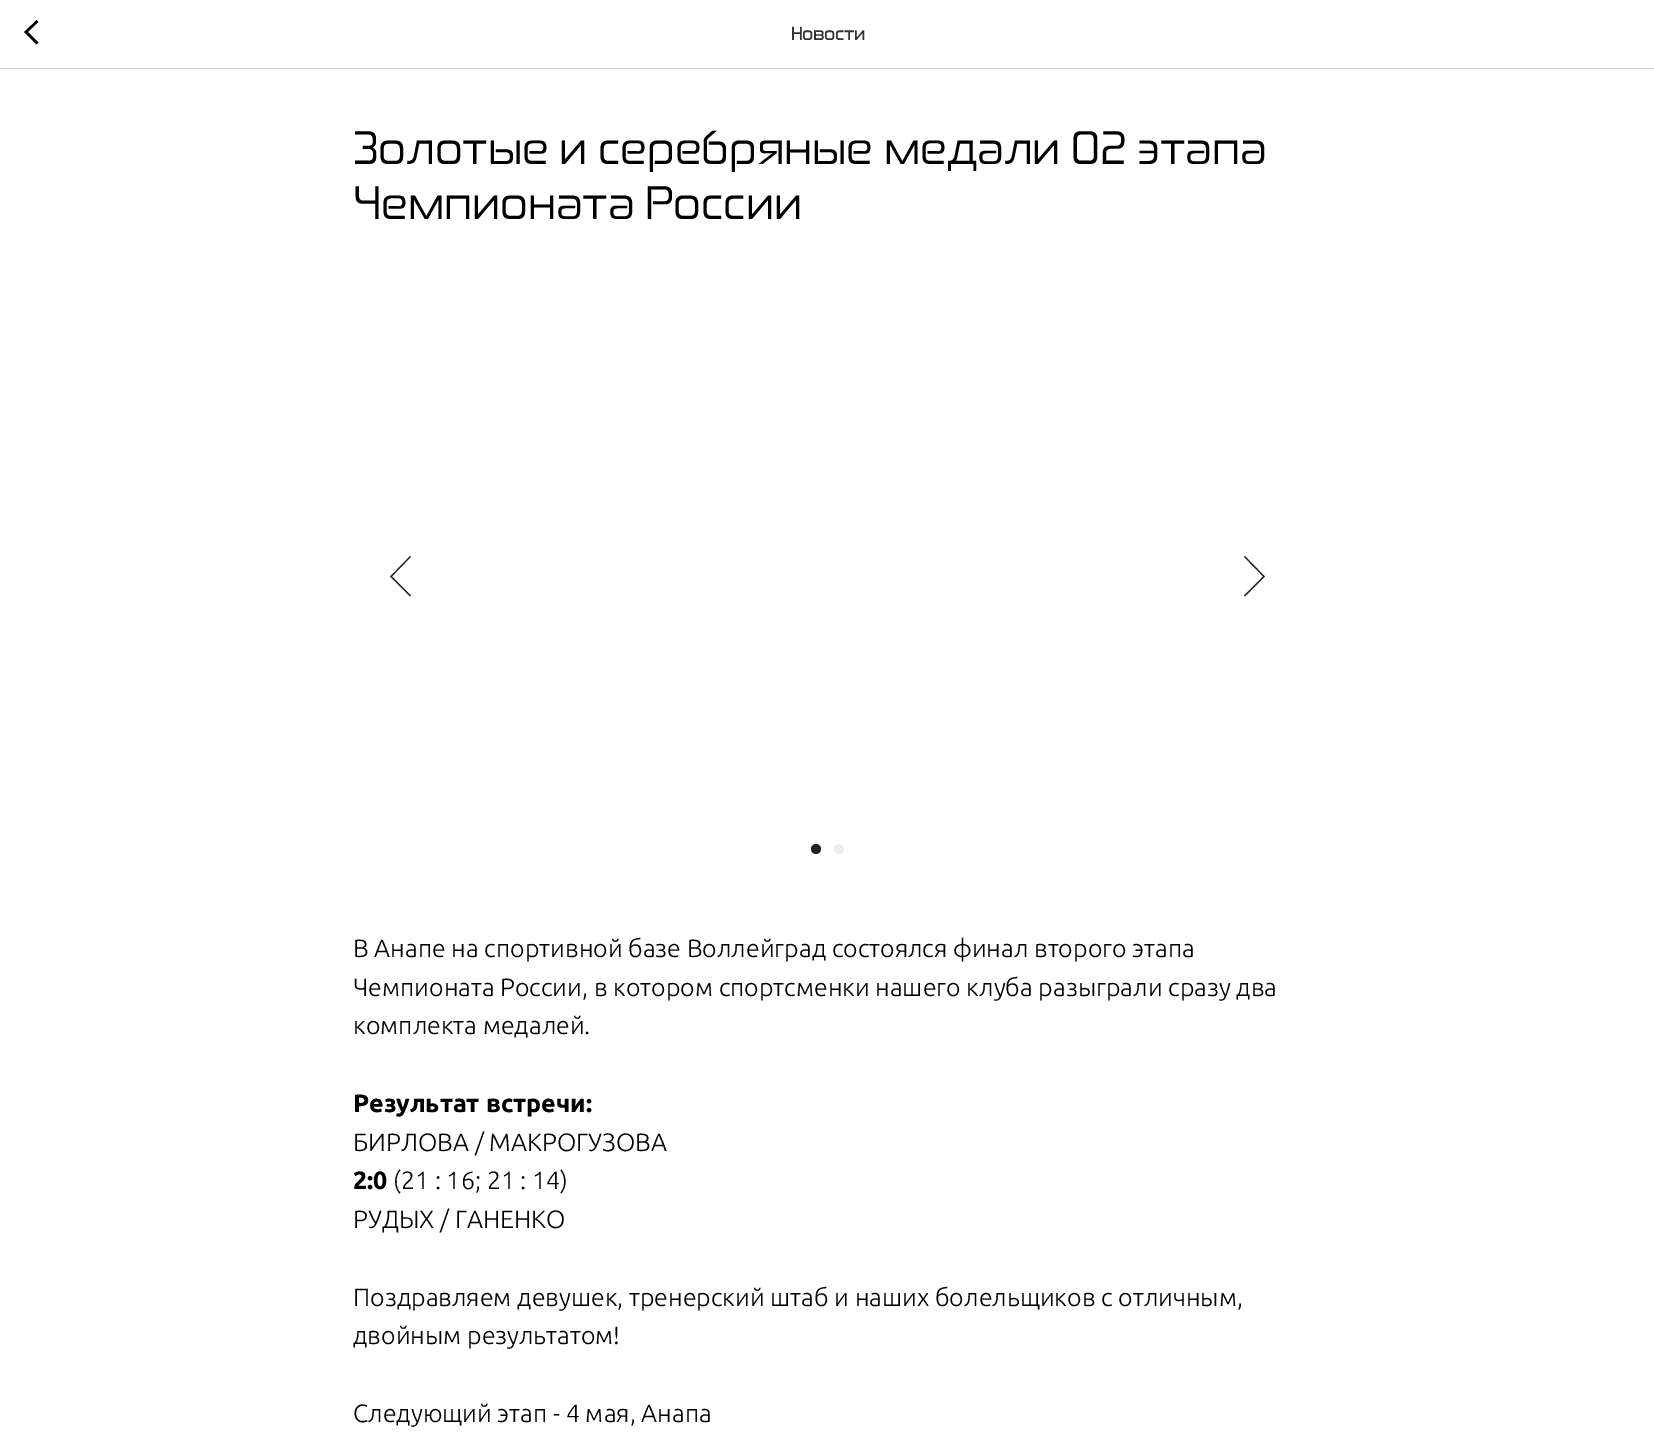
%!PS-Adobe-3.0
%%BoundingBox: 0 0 1654 1447
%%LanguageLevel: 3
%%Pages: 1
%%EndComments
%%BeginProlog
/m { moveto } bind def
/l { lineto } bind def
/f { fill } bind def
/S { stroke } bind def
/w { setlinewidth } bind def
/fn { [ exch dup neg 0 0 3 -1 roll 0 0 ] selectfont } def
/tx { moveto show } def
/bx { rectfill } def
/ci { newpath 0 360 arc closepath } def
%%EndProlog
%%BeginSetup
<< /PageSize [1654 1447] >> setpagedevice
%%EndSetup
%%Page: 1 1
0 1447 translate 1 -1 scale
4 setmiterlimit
1 setgray
0 0 1654 1447 bx
0.8 setgray
0 68 1654 1 bx
0 setgray
2.5 w
37.5 43.5 m 26 32 l 37.5 21 l S
/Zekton-Bold 17.5 fn
0.2 setgray
(Новости) 791 40 tx
/Zekton-Regular 45 fn
0 setgray
(Золотые и серебряные медали 02 этапа) 353 164 tx
(Чемпионата России) 353 219 tx
0.133 setgray
1.2 w
410.5 596 m 391 576.5 l 410.5 556.5 l S
1244.5 556.5 m 1264 576.5 l 1244.5 596 l S
816 849 5 ci f
0.933 setgray
839 849 5 ci f
/Ubuntu-Light 25 fn
0 setgray
(В Анапе на спортивной базе Воллейград состоялся финал второго этапа) 353 957 tx
(Чемпионата России, в котором спортсменки нашего клуба разыграли сразу два) 353 996 tx
(комплекта медалей.) 353 1034 tx
/Ubuntu-Bold 25 fn
(Результат встречи:) 353 1112 tx
/Ubuntu-Light 25 fn
(БИРЛОВА / МАКРОГУЗОВА) 353 1151 tx
/Ubuntu-Bold 25 fn
(2:0) 353 1189 tx
/Ubuntu-Light 25 fn
(\(21 : 16; 21 : 14\)) 393 1189 tx
(РУДЫХ / ГАНЕНКО) 353 1228 tx
(Поздравляем девушек, тренерский штаб и наших болельщиков с отличным,) 353 1306 tx
(двойным результатом!) 353 1344 tx
(Следующий этап - 4 мая, Анапа) 353 1422 tx
showpage
%%EOF
